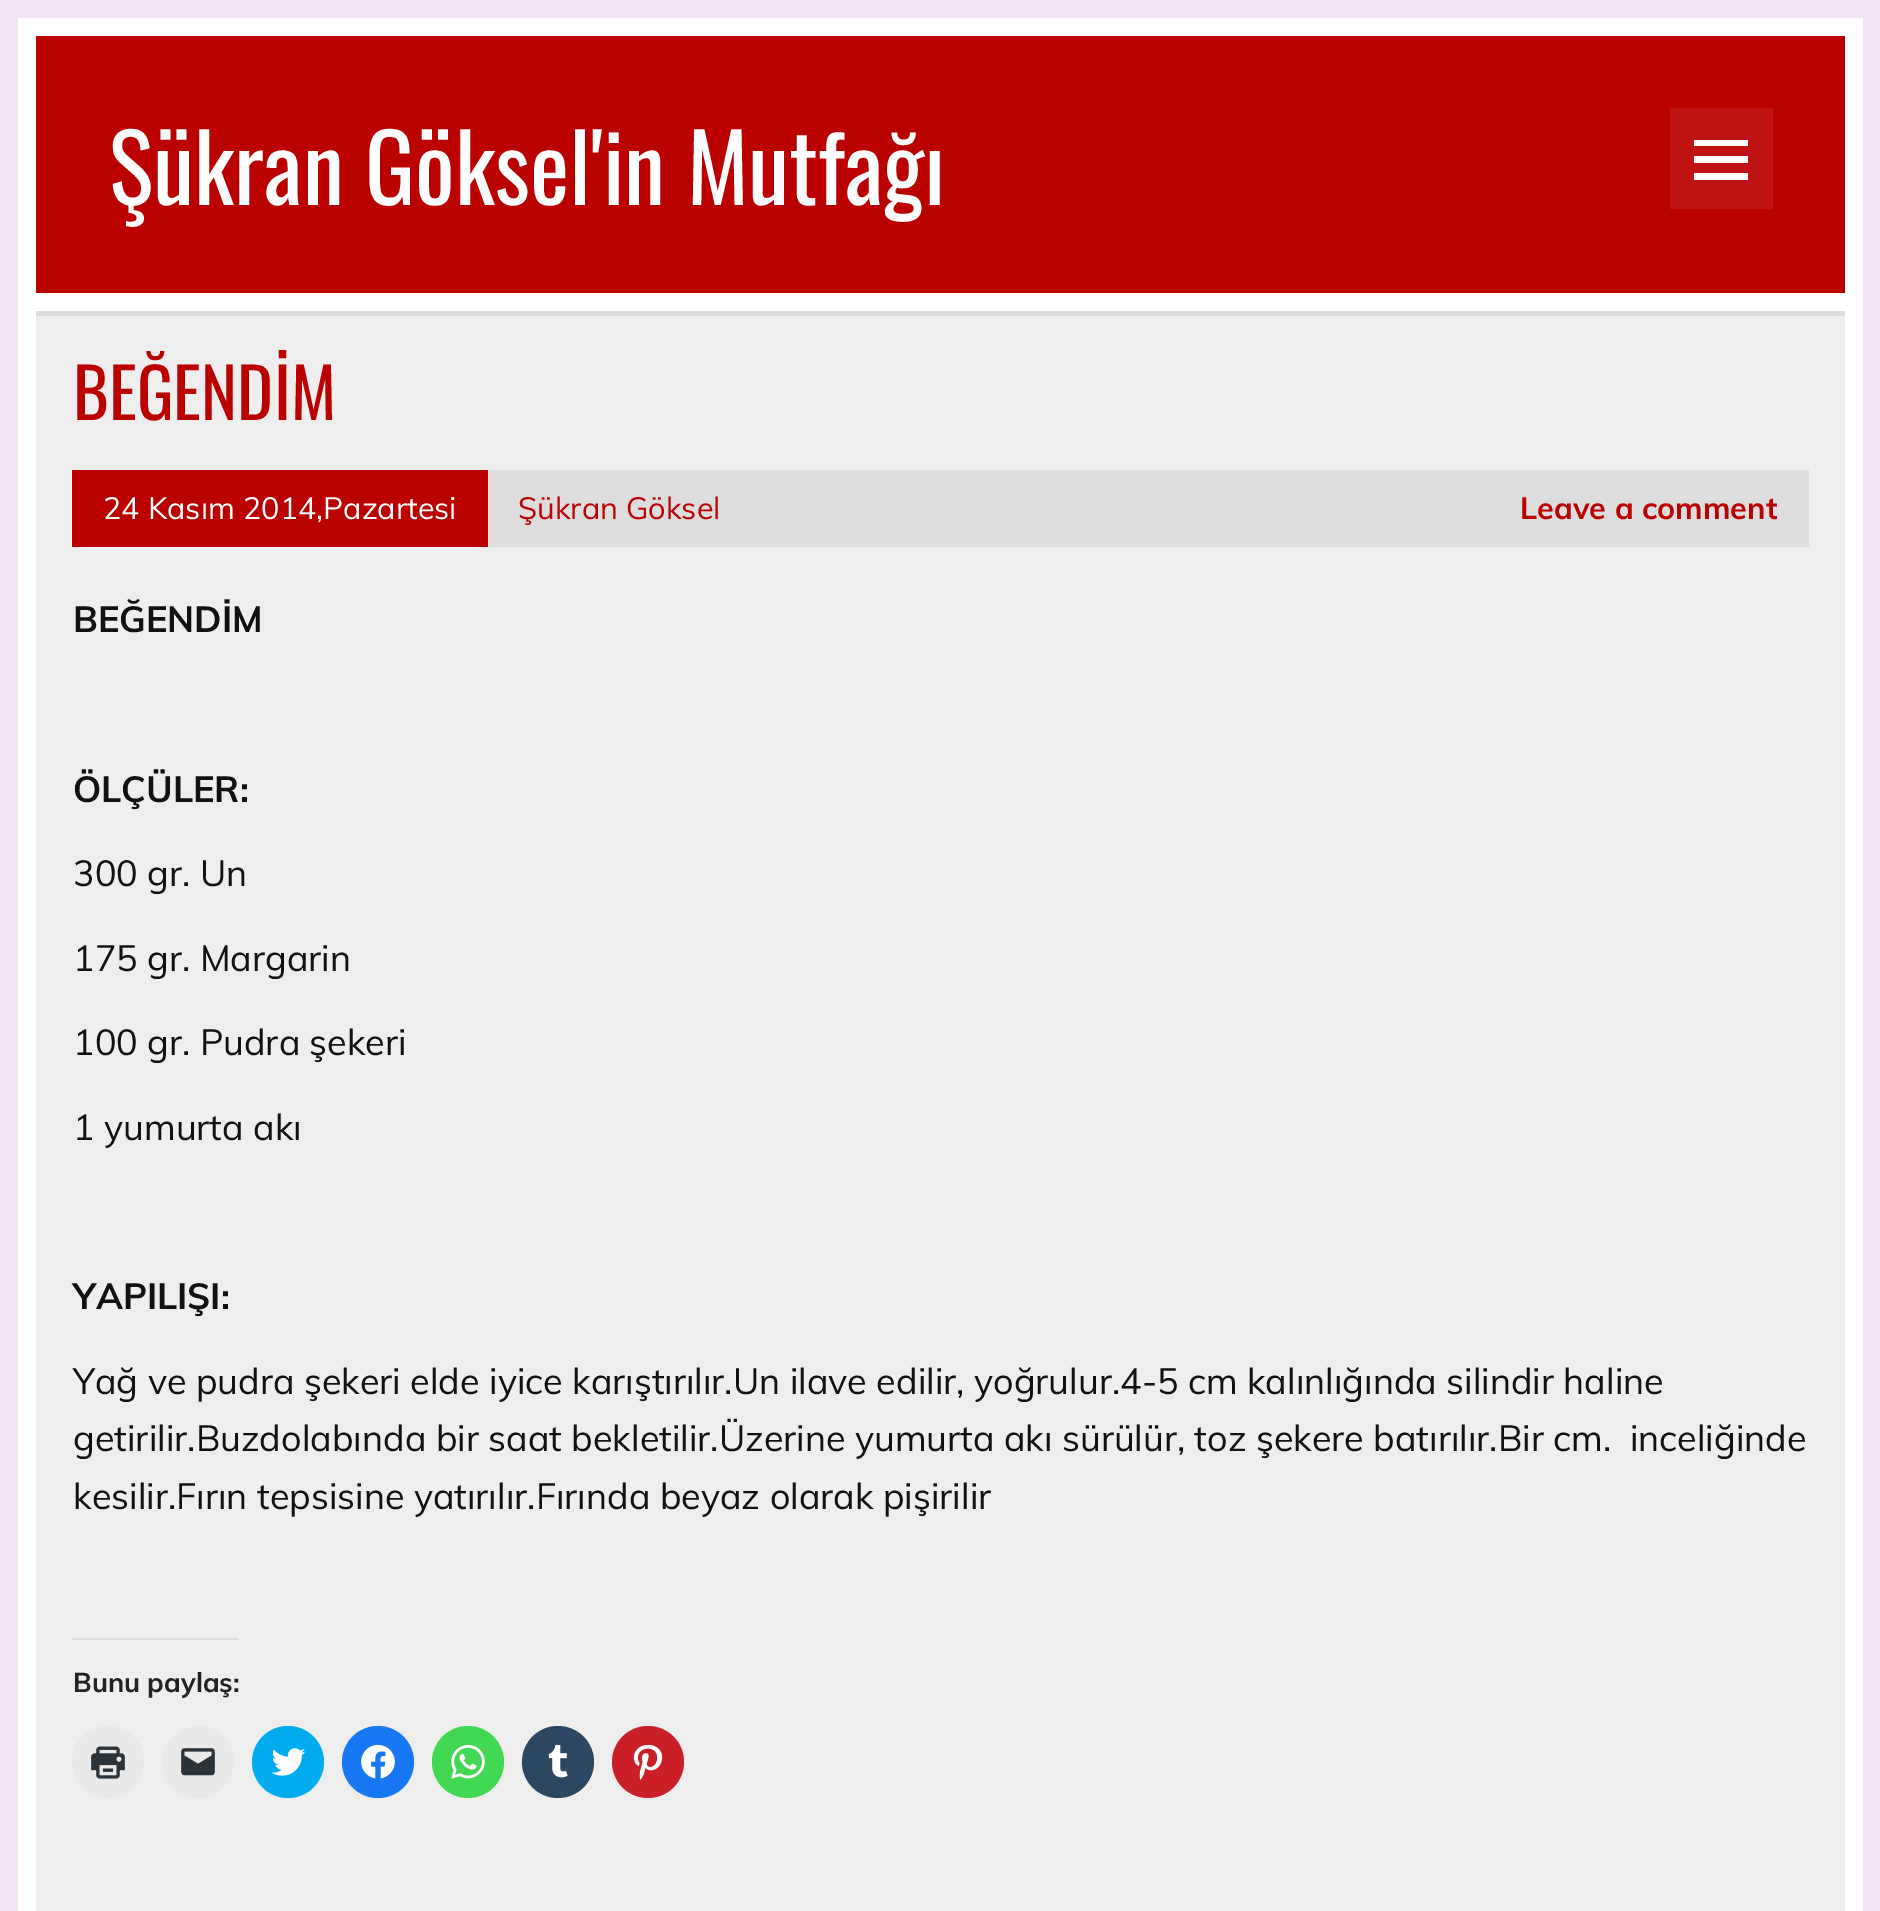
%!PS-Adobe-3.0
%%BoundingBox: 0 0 1880 1911
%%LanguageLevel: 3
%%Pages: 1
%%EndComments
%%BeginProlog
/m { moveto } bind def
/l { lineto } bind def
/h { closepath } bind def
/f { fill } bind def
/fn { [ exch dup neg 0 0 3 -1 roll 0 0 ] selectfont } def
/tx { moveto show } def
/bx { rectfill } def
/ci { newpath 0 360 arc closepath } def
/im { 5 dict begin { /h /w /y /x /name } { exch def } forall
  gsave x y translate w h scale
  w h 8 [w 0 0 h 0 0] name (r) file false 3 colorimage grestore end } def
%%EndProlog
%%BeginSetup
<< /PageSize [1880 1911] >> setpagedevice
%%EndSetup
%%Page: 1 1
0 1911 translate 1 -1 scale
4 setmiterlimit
0.953 0.89 0.957 setrgbcolor
0 0 1880 1911 bx
1 setgray
18 18 1845 1893 bx
0.733 0 0 setrgbcolor
36 36 1809 257 bx
/Oswald-Regular 93.5 fn
1 setgray
(Şükran Göksel'in Mutfağı) 109 205 tx
0.753 0.078 0.078 setrgbcolor
1670 108 103 101 bx
1 setgray
1694 180 m 1694 173 l 1748 173 l 1748 180 l h 1694 140 m 1748 140 l 1748 146 l 1694 146 l h 1694 163 m 1694 156 l 1748 156 l 1748 163 l h f
0.933 setgray
36 316 1809 1595 bx
0.867 setgray
36 311 1809 5 bx
/Oswald-Regular 68.5 fn
0.733 0 0 setrgbcolor
(BEĞENDİM) 73 420 tx
0.867 setgray
488 470 1321 77 bx
0.733 0 0 setrgbcolor
72 470 416 77 bx
/Muli-Regular 30.6 fn
1 setgray
(24 Kasım 2014,Pazartesi) 103 519 tx
0.733 0 0 setrgbcolor
(Şükran Göksel) 518 519 tx
/Muli-Bold 30.6 fn
(Leave a comment) 1520 519 tx
/Muli-Bold 36 fn
0.067 setgray
(BEĞENDİM) 73 632 tx
(ÖLÇÜLER:) 73 802 tx
/Muli-Regular 36 fn
(300 gr. Un) 73 886 tx
(175 gr. Margarin) 73 971 tx
(100 gr. Pudra şekeri) 73 1055 tx
(1 yumurta akı) 73 1140 tx
/Muli-Bold 36 fn
(YAPILIŞI:) 73 1309 tx
/Muli-Regular 36 fn
(Yağ ve pudra şekeri elde iyice karıştırılır.Un ilave edilir, yoğrulur.4-5 cm kalınlığında silindir haline) 73 1394 tx
(getirilir.Buzdolabında bir saat bekletilir.Üzerine yumurta akı sürülür, toz şekere batırılır.Bir cm.  inceliğinde) 73 1451 tx
(kesilir.Fırın tepsisine yatırılır.Fırında beyaz olarak pişirilir) 73 1509 tx
0.863 0.863 0.871 setrgbcolor
72 1638 167 2 bx
/Muli-Bold 27 fn
0.133 setgray
(Bunu paylaş:) 73 1692 tx
0.914 setgray
108 1762 36 ci f
(image0.raw) 91 1746 34 33 im
198 1762 36 ci f
(image1.raw) 181 1748 34 28 im
0 0.675 0.933 setrgbcolor
288 1762 36 ci f
(image2.raw) 271 1748 35 28 im
0.094 0.467 0.949 setrgbcolor
378 1762 36 ci f
(image3.raw) 361 1744 34 35 im
0.263 0.847 0.329 setrgbcolor
468 1762 36 ci f
(image4.raw) 451 1744 34 35 im
0.173 0.278 0.384 setrgbcolor
558 1762 36 ci f
(image5.raw) 548 1744 20 34 im
0.792 0.122 0.153 setrgbcolor
648 1762 36 ci f
(image6.raw) 633 1744 30 36 im
showpage
%%EOF
